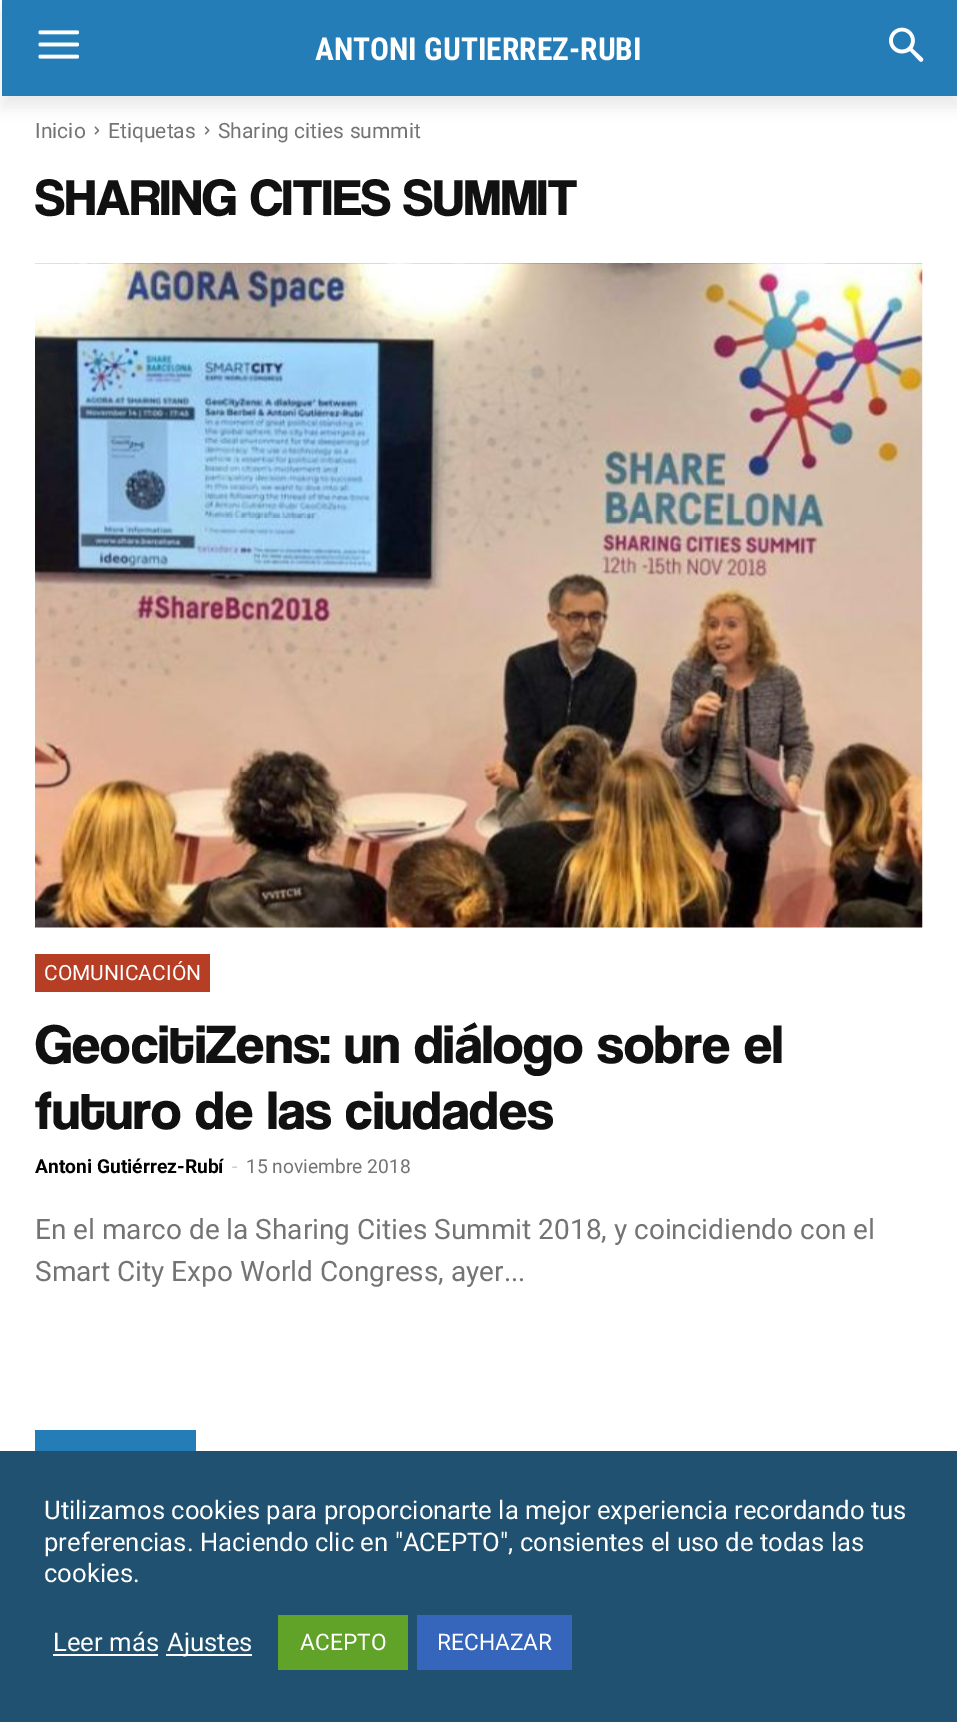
%!PS-Adobe-3.0
%%BoundingBox: 0 0 957 1722
%%LanguageLevel: 3
%%Pages: 1
%%EndComments
%%BeginProlog
/m { moveto } bind def
/l { lineto } bind def
/h { closepath } bind def
/q { gsave } bind def
/Q { grestore } bind def
/fn { [ exch dup neg 0 0 3 -1 roll 0 0 ] selectfont } def
/tx { moveto show } def
/bx { rectfill } def
/al { dup .setfillconstantalpha .setstrokeconstantalpha } def
/rr { 5 dict begin { /r /h /w /y /x } { exch def } forall
  x r add y moveto x w add y 2 copy h add r arct x w add y h add x 1 index r arct
  x y h add x y r arct x y 2 copy exch w add exch r arct closepath end } def
/sh { 12 dict begin { /a /b /q /h /w /y /x } { exch def } forall gsave /was 0 def
  9 -2 -9 { dup b mul 4 div /e exch def 1 sub .425 mul 2.718 exch exp 1 add a .99 .min exch div /now exch def
    1 1 now sub 1 was sub div sub al /was now def
    w h .min e 2 mul add 0 gt { x e sub y e sub w e 2 mul add h e 2 mul add
      q e add b .6 mul add w h .min 2 div e add .min 0 .max rr fill } if } for grestore end } def
/im { 5 dict begin { /h /w /y /x /name } { exch def } forall
  gsave x y translate w h scale
  w h 8 [w 0 0 h 0 0] name (r) file false 3 colorimage grestore end } def
%%EndProlog
%%BeginSetup
<< /PageSize [957 1722] /PageUsesTransparency true >> setpagedevice
%%EndSetup
%%Page: 1 1
0 .pushpdf14devicefilter
0 1722 translate 1 -1 scale
4 setmiterlimit
1 setgray
0 0 957 1722 bx
0.141 0.49 0.714 setrgbcolor
2 0 955 96 bx
(image0.raw) 38 30 41 29 im
(image1.raw) 889 27 35 35 im
(image2.raw) 94 126 6 9 im
(image3.raw) 204 126 6 9 im
q
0 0 m 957 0 l 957 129 l 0 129 l h 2 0 m 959 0 l 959 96 l 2 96 l h eoclip newpath
0 setgray
2 11 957 96 0 7 0.08 sh
Q
/RobotoCondensed-Bold 31.5 fn
1 setgray
(ANTONI GUTIERREZ-RUBI) 315 60 tx
/Roboto-Regular 21 fn
0.455 setgray
(Inicio) 35 138 tx
(Etiquetas) 108 138 tx
(Sharing cities summit) 218 138 tx
/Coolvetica-Bold 52.5 fn
0.067 setgray
(SHARING CITIES SUMMIT) 35 215 tx
(image4.raw) 35 263 888 665 im
0.714 0.243 0.141 setrgbcolor
35 954 175 38 bx
/Roboto-Regular 21 fn
1 setgray
(COMUNICACIÓN) 44 980 tx
/Coolvetica-Bold 56 fn
0.067 setgray
(GeocitiZens: un diálogo sobre el) 35 1063 tx
(futuro de las ciudades) 35 1129 tx
/Roboto-Bold 19.25 fn
0 setgray
(Antoni Gutiérrez-Rubí) 35 1173 tx
/Roboto-Regular 19.25 fn
0.8 setgray
(-) 232 1173 tx
0.455 setgray
(15 noviembre 2018) 246 1173 tx
/Roboto-Regular 28 fn
(En el marco de la Sharing Cities Summit 2018, y coincidiendo con el) 35 1239 tx
(Smart City Expo World Congress, ayer...) 35 1281 tx
0.141 0.49 0.714 setrgbcolor
35 1430 161 21 bx
0.129 0.318 0.439 setrgbcolor
0 1451 957 271 bx
/Roboto-Regular 25.65 fn
1 setgray
(Utilizamos cookies para proporcionarte la mejor experiencia recordando tus) 44 1519 tx
(preferencias. Haciendo clic en "ACEPTO", consientes el uso de todas las) 44 1551 tx
(cookies.) 44 1582 tx
(Leer más) 53 1651 tx
53 1654 105 2 bx
166 1654 86 2 bx
(Ajustes) 167 1651 tx
0.38 0.635 0.161 setrgbcolor
278 1615 130 55 bx
/Roboto-Regular 22.75 fn
1 setgray
(ACEPTO) 300 1650 tx
0.208 0.4 0.733 setrgbcolor
417 1615 155 55 bx
1 setgray
(RECHAZAR) 437 1650 tx
.poppdf14devicefilter showpage
%%EOF
